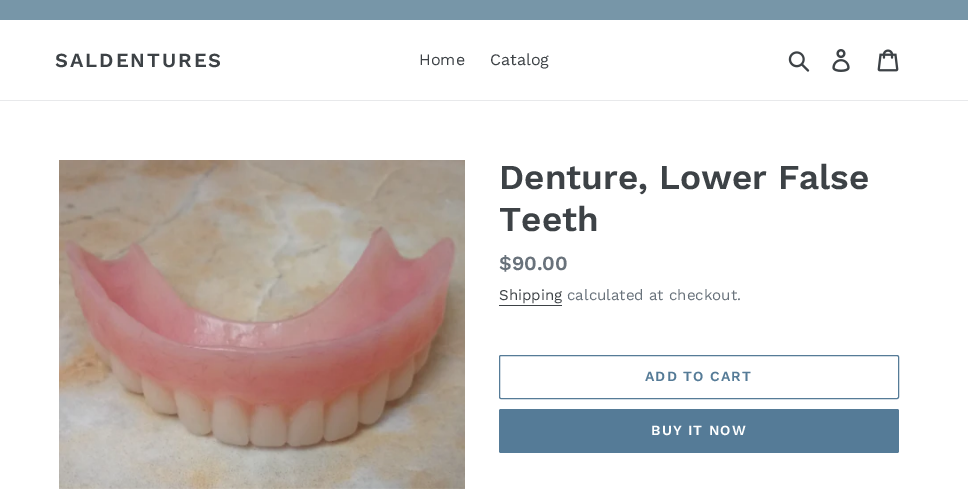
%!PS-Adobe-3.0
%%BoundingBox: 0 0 968 503
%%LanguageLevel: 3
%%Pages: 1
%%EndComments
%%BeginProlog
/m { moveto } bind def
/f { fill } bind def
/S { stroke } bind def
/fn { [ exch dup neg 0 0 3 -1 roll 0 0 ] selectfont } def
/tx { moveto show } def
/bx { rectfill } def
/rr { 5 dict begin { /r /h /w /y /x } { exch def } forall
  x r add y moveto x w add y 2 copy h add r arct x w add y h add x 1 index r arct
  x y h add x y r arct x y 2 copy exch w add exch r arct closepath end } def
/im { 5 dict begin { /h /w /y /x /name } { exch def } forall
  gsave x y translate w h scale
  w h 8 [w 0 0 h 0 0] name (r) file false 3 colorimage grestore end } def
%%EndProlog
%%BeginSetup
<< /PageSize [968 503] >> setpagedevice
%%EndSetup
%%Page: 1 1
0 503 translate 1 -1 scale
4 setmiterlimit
1 setgray
0 0 968 503 bx
0.467 0.588 0.659 setrgbcolor
0 0 968 20 bx
0.91 0.914 0.922 setrgbcolor
0 100 968 1 bx
/WorkSans-SemiBold 20 fn
0.239 0.259 0.275 setrgbcolor
55 67 m 2 0 (SALDENTURES) ashow
/WorkSans-Regular 16 fn
(Home) 419 65 tx
(Catalog) 490 65 tx
(image0.raw) 788 51 22 21 im
(image1.raw) 832 49 18 23 im
(image2.raw) 877 49 22 23 im
(image3.raw) 59 160 406 329 im
/WorkSans-SemiBold 35 fn
(Denture, Lower False) 499 189 tx
(Teeth) 499 231 tx
/WorkSans-SemiBold 20 fn
0.412 0.447 0.482 setrgbcolor
($90.00) 499 270 tx
/WorkSans-Regular 15 fn
0.239 0.259 0.275 setrgbcolor
(Shipping) 499 300 tx
499 305 63 1 bx
0.412 0.447 0.482 setrgbcolor
(calculated at checkout.) 567 300 tx
0.333 0.482 0.592 setrgbcolor
499.5 355.5 399 43 1.5 rr S
/WorkSans-SemiBold 14 fn
645 381 m 1.1 0 (ADD TO CART) ashow
499 409 400 44 2 rr f
1 setgray
651 435 m 1.1 0 (BUY IT NOW) ashow
showpage
%%EOF
